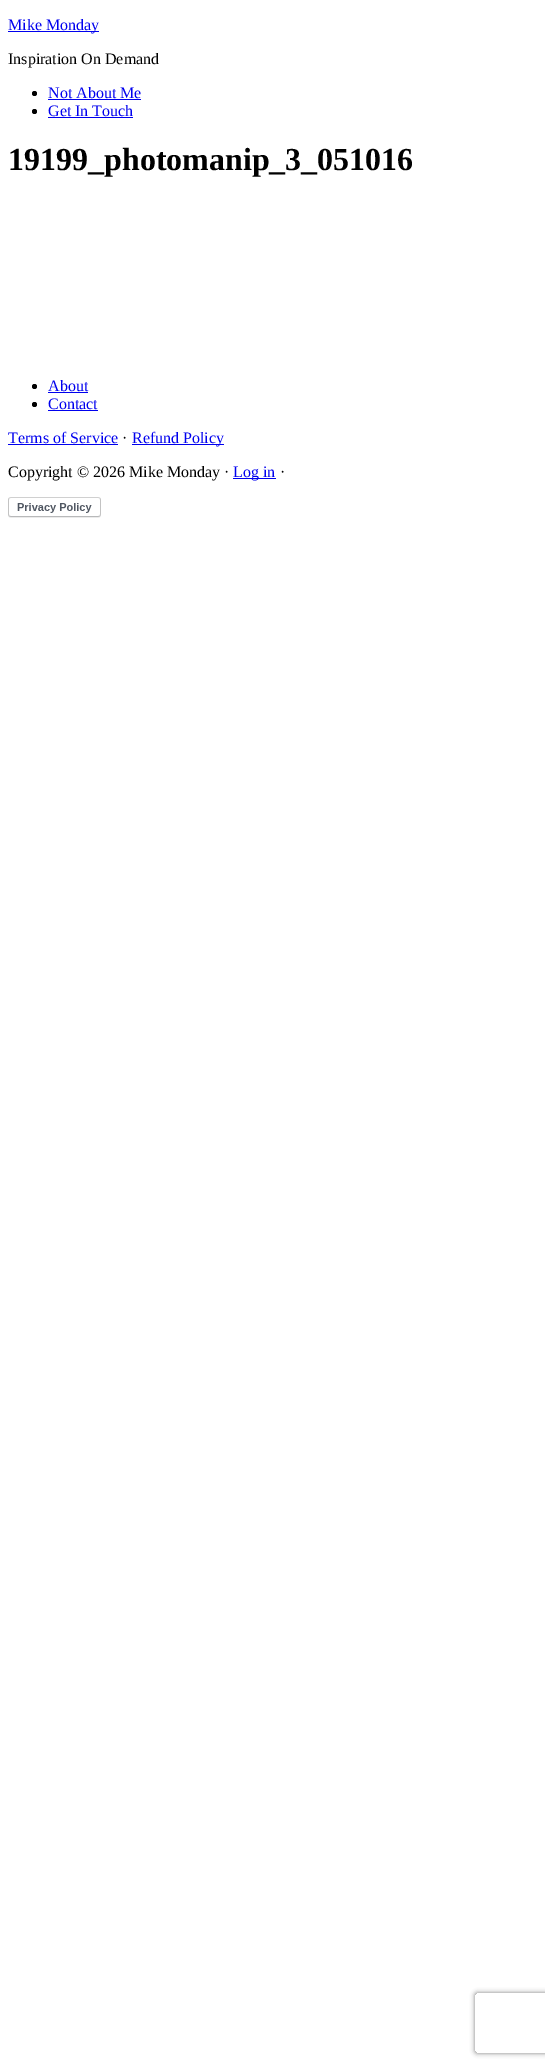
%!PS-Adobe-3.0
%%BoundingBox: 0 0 545 2067
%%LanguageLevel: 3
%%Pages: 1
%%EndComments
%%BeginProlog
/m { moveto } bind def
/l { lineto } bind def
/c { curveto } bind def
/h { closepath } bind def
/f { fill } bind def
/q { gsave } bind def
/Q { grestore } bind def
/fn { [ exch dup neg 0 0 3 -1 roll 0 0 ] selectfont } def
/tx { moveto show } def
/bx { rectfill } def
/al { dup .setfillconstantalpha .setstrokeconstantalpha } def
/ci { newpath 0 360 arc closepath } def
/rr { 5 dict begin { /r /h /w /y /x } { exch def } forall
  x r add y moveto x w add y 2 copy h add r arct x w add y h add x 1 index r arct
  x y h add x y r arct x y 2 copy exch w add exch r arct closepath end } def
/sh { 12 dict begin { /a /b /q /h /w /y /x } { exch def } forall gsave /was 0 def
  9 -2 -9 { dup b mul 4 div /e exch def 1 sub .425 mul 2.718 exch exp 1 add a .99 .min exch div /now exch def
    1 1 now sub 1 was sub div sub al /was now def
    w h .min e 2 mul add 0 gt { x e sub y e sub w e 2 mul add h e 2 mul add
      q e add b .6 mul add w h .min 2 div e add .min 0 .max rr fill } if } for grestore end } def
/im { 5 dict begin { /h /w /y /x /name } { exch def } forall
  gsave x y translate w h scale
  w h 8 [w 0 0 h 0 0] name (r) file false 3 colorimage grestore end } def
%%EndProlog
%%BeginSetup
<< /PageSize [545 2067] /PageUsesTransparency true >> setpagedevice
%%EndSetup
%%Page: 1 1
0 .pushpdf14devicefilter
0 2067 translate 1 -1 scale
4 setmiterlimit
1 setgray
0 0 545 2067 bx
0 0 0.933 setrgbcolor
8 31 91 1 bx
/LiberationSerif-Regular 16 fn
(Mike Monday) 8 30 tx
0 setgray
(Inspiration On Demand) 8 64 tx
34.5 93.5 2.5 ci f
0 0 0.933 setrgbcolor
(Not About Me) 48 98 tx
48 99 93 1 bx
0 setgray
34.5 111.5 2.5 ci f
0 0 0.933 setrgbcolor
(Get In Touch) 48 116 tx
48 117 85 1 bx
/LiberationSerif-Bold 32 fn
0 setgray
(19199_photomanip_3_051016) 8 170 tx
34.5 386.5 2.5 ci f
/LiberationSerif-Regular 16 fn
0 0 0.933 setrgbcolor
(About) 48 391 tx
48 392 40 1 bx
0 setgray
34.5 404.5 2.5 ci f
0 0 0.933 setrgbcolor
(Contact) 48 409 tx
48 410 50 1 bx
(Terms of Service) 8 443 tx
8 444 110 1 bx
0 setgray
(·) 122 443 tx
0 0 0.933 setrgbcolor
132 444 92 1 bx
(Refund Policy) 132 443 tx
0 setgray
(Copyright © 2026 Mike Monday ·) 8 477 tx
0 0 0.933 setrgbcolor
233 478 43 1 bx
(Log in) 233 477 tx
0 setgray
(·) 280 477 tx
(image0.raw) 8 497 93 21 im
q
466 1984 m 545 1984 l 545 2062 l 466 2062 l h 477 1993 m 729 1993 l 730 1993 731 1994 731 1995 c 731 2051 l 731 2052 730 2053 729 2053 c 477 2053 l 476 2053 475 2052 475 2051 c 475 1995 l 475 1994 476 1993 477 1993 c h eoclip newpath
0.502 setgray
475 1993 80 60 2 2.5 1 sh
Q
.poppdf14devicefilter showpage
%%EOF
